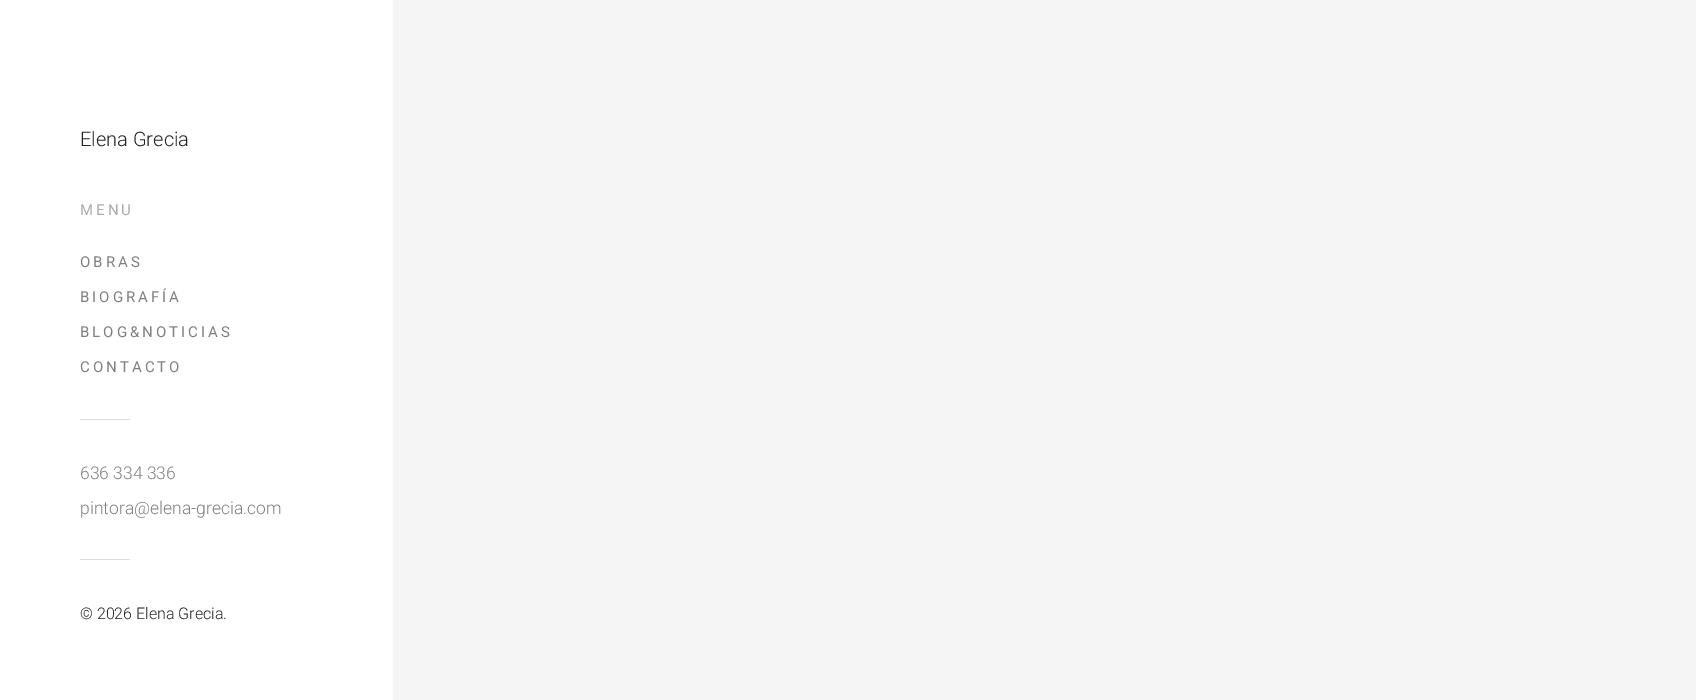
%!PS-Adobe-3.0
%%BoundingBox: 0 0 1696 700
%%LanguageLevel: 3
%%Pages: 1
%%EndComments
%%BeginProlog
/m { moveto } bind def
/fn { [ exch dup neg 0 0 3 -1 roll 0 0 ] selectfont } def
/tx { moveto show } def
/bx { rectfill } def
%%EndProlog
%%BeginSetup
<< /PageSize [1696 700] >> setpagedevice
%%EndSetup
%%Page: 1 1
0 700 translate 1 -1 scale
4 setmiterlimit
1 setgray
0 0 1696 700 bx
0.961 setgray
393 0 1303 700 bx
/Roboto-Light 20 fn
0.133 setgray
(Elena Grecia) 80 146 tx
/Roboto-Regular 15 fn
0.675 setgray
80 215 m 3 0 (MENU) ashow
0.502 setgray
80 267 m 3 0 (OBRAS) ashow
80 302 m 3 0 (BIOGRAFÍA) ashow
80 337 m 3 0 (BLOG&NOTICIAS) ashow
80 372 m 3 0 (CONTACTO) ashow
0.863 setgray
80 419 50 1 bx
/Roboto-Light 17.5 fn
0.502 setgray
(636 334 336) 80 479 tx
(pintora@elena-grecia.com) 80 514 tx
0.863 setgray
80 559 50 1 bx
/Roboto-Light 16 fn
0.133 setgray
(© 2026 Elena Grecia.) 80 619 tx
showpage
%%EOF
